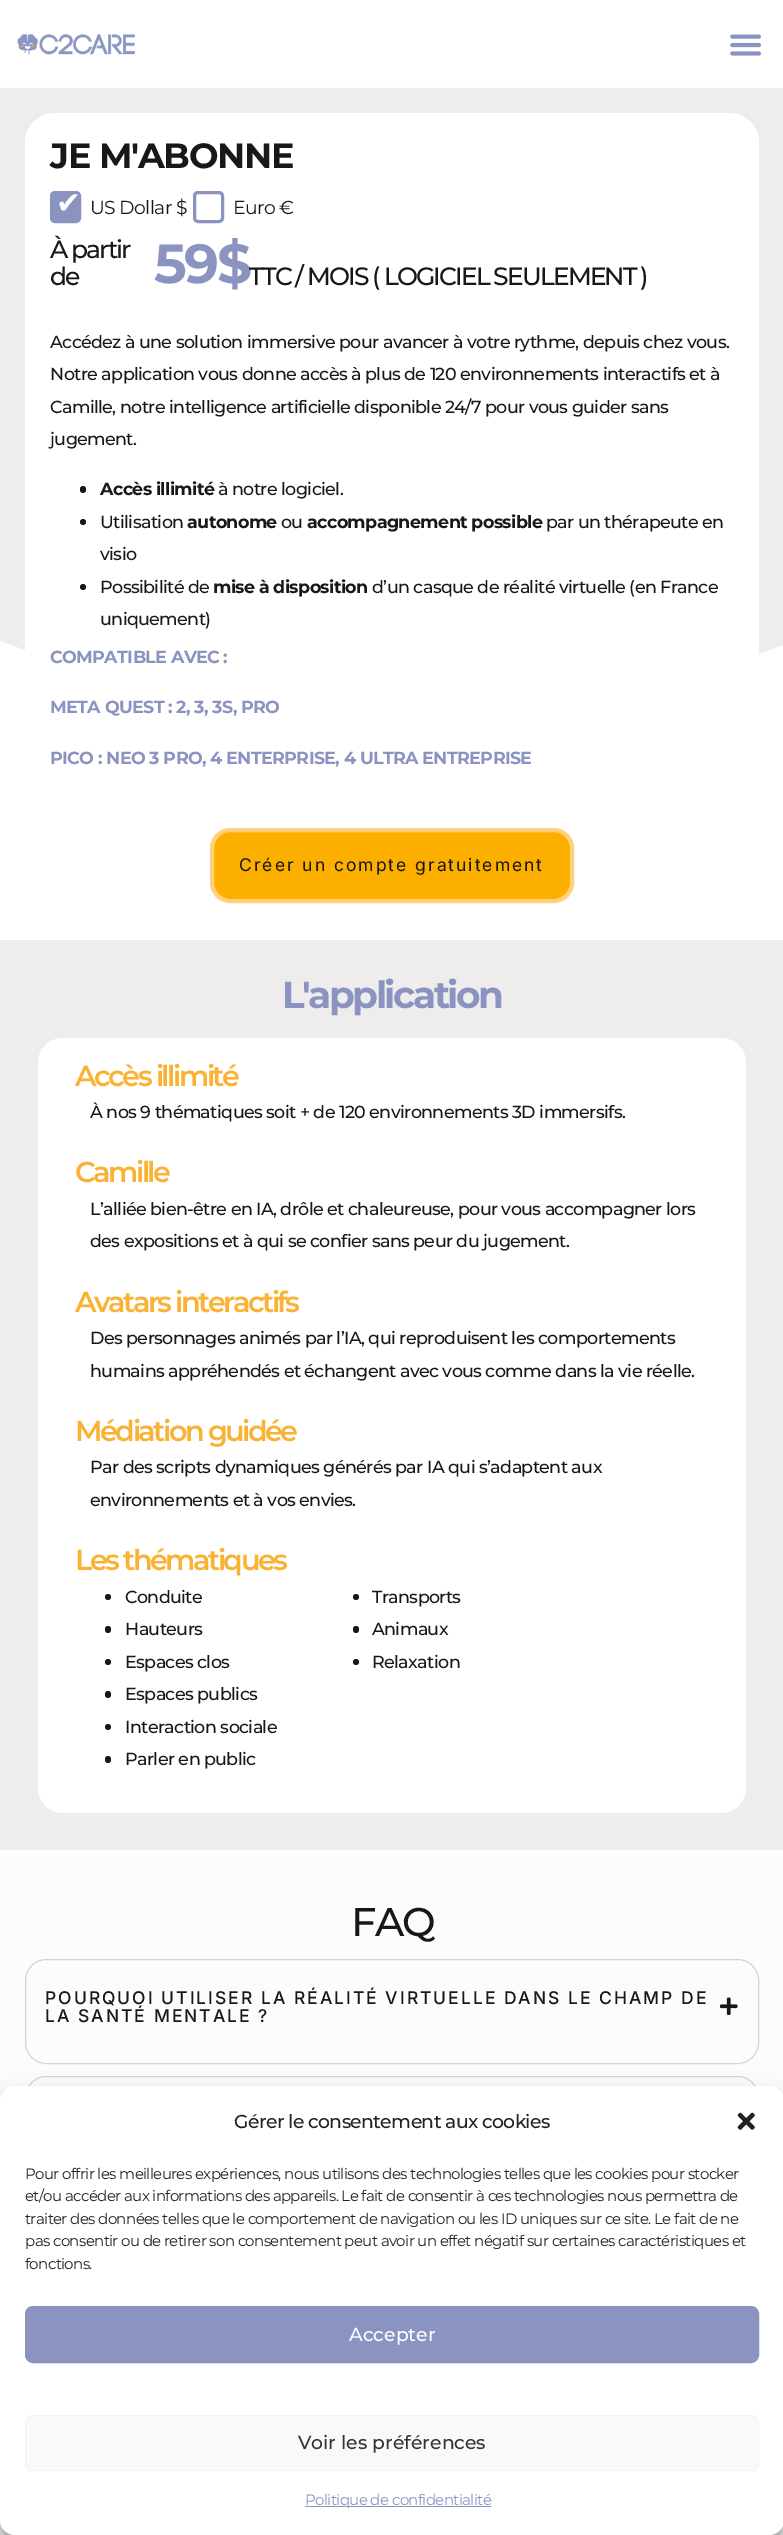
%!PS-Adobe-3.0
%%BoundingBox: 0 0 783 2535
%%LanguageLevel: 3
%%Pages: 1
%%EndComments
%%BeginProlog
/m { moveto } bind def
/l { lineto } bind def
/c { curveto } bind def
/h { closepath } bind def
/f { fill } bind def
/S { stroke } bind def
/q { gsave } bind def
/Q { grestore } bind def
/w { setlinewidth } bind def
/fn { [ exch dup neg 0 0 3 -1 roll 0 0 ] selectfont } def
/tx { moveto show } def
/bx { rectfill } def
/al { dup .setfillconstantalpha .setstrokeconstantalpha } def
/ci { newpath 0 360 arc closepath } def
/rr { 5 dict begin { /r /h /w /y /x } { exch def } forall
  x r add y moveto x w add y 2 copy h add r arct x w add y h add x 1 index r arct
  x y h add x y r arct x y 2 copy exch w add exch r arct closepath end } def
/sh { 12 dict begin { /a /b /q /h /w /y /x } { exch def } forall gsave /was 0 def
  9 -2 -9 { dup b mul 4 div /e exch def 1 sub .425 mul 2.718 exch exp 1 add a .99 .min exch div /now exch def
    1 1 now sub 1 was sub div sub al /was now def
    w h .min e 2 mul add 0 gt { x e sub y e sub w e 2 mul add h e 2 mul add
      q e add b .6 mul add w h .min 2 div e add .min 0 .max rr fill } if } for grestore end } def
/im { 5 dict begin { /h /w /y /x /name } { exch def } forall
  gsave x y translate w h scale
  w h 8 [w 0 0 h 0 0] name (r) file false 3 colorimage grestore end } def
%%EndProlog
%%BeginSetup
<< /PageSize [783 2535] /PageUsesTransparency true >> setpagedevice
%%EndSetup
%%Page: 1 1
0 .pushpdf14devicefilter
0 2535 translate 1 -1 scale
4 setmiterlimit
1 setgray
0 0 783 2535 bx
(image0.raw) 17 33 118 22 im
(image1.raw) 730 34 31 22 im
0.933 0.925 0.925 setrgbcolor
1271 113 m 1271 86 l -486 86 l -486 113 l -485 231 -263 706 392 711 c 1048 716 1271 228 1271 113 c h f
0.9 al
1 setgray
0 86 783 2 bx
1 al
25 113 734 790 30 rr f
/Montserrat-Bold 35 fn
0.094 setgray
50 168 m -1.25 0 (JE M'ABONNE) ashow
0.545 0.58 0.757 setrgbcolor
51.5 192.5 28 29 3.5 rr q f Q
3 w
S
/DejaVuSans-Regular 30 fn
1 setgray
56 213 m -0.62 0 (✔) ashow
/Montserrat-Regular 18.75 fn
0.094 setgray
90 214 m -0.62 0 (US Dollar $) ashow
0.545 0.58 0.757 setrgbcolor
194.5 192.5 28 29 3.5 rr S
0.094 setgray
233 214 m -0.62 0 (Euro €) ashow
/Montserrat-Medium 25 fn
50 258 m -1.9 0 (À partir) ashow
50 285 m -1.9 0 (de) ashow
/Montserrat-Bold 55 fn
0.545 0.58 0.757 setrgbcolor
154 283 m -2.5 0 (59$) ashow
/Montserrat-Medium 25 fn
0.094 setgray
249 285 m -1.9 0 (TTC / MOIS \( LOGICIEL SEULEMENT \)) ashow
/Montserrat-Medium 17.5 fn
50 348 m -0.62 0 (Accédez à une solution immersive pour avancer à votre rythme, depuis chez vous.) ashow
50 380 m -0.62 0 (Notre application vous donne accès à plus de 120 environnements interactifs et à) ashow
50 413 m -0.62 0 (Camille, notre intelligence artificielle disponible 24/7 pour vous guider sans) ashow
50 445 m -0.62 0 (jugement.) ashow
80 486 6 7 3 rr f
/Montserrat-Bold 17.5 fn
100 495 m -0.62 0 (Accès illimité) ashow
/Montserrat-Medium 17.5 fn
218 495 m -0.62 0 (à notre logiciel.) ashow
83 522 3 ci f
100 528 m -0.62 0 (Utilisation) ashow
/Montserrat-Bold 17.5 fn
187 528 m -0.62 0 (autonome) ashow
/Montserrat-Medium 17.5 fn
281 528 m -0.62 0 (ou) ashow
/Montserrat-Bold 17.5 fn
307 528 m -0.62 0 (accompagnement possible) ashow
/Montserrat-Medium 17.5 fn
546 528 m -0.62 0 (par un thérapeute en) ashow
100 560 m -0.62 0 (visio) ashow
83 587 3 ci f
100 593 m -0.62 0 (Possibilité de) ashow
/Montserrat-Bold 17.5 fn
213 593 m -0.62 0 (mise à disposition) ashow
/Montserrat-Medium 17.5 fn
372 593 m -0.62 0 (d’un casque de réalité virtuelle \(en France) ashow
100 625 m -0.62 0 (uniquement\)) ashow
/Montserrat-Bold 17.5 fn
0.545 0.58 0.757 setrgbcolor
50 663 m -0.62 0 (COMPATIBLE AVEC :) ashow
50 713 m -0.62 0 (META QUEST : 2, 3, 3S, PRO) ashow
50 764 m -0.62 0 (PICO : NEO 3 PRO, 4 ENTERPRISE, 4 ULTRA ENTREPRISE) ashow
0.992 0.686 0 setrgbcolor
212 830 360 71 18 rr q f Q
1 0.82 0.494 setrgbcolor
4 w
S
/Inter-Regular 17.5 fn
0.094 setgray
239 871 m 2 0 (Créer un compte gratuitement) ashow
0.933 0.925 0.925 setrgbcolor
0 940 783 910 bx
/Montserrat-Bold 37.5 fn
0.545 0.58 0.757 setrgbcolor
282 1008 m -2.5 0 (L'application) ashow
1 setgray
38 1038 708 775 25 rr f
/Montserrat-SemiBold 28.75 fn
0.976 0.698 0.2 setrgbcolor
75 1086 m -2.5 0 (Accès illimité) ashow
/Montserrat-Medium 17.5 fn
0.094 setgray
90 1118 m -0.62 0 (À nos 9 thématiques soit + de 120 environnements 3D immersifs.) ashow
/Montserrat-SemiBold 28.75 fn
0.976 0.698 0.2 setrgbcolor
75 1182 m -2.5 0 (Camille) ashow
/Montserrat-Medium 17.5 fn
0.094 setgray
90 1215 m -0.62 0 (L’alliée bien-être en IA, drôle et chaleureuse, pour vous accompagner lors) ashow
90 1247 m -0.62 0 (des expositions et à qui se confier sans peur du jugement.) ashow
/Montserrat-SemiBold 28.75 fn
0.976 0.698 0.2 setrgbcolor
75 1312 m -2.5 0 (Avatars interactifs) ashow
/Montserrat-Medium 17.5 fn
0.094 setgray
90 1344 m -0.62 0 (Des personnages animés par l’IA, qui reproduisent les comportements) ashow
90 1377 m -0.62 0 (humains appréhendés et échangent avec vous comme dans la vie réelle.) ashow
/Montserrat-SemiBold 28.75 fn
0.976 0.698 0.2 setrgbcolor
75 1441 m -2.5 0 (Médiation guidée) ashow
/Montserrat-Medium 17.5 fn
0.094 setgray
90 1473 m -0.62 0 (Par des scripts dynamiques générés par IA qui s’adaptent aux) ashow
90 1506 m -0.62 0 (environnements et à vos envies.) ashow
/Montserrat-SemiBold 28.75 fn
0.976 0.698 0.2 setrgbcolor
75 1570 m -2.5 0 (Les thématiques) ashow
0.094 setgray
108 1597 3 ci f
/Montserrat-Medium 17.5 fn
125 1603 m -0.62 0 (Conduite) ashow
105 1626 6 7 3 rr f
125 1635 m -0.62 0 (Hauteurs) ashow
108 1662 3 ci f
125 1668 m -0.62 0 (Espaces clos) ashow
356 1597 3 ci f
372 1603 m -0.62 0 (Transports) ashow
353 1626 6 7 3 rr f
372 1635 m -0.62 0 (Animaux) ashow
356 1662 3 ci f
372 1668 m -0.62 0 (Relaxation) ashow
105 1691 6 7 3 rr f
125 1700 m -0.62 0 (Espaces publics) ashow
108 1727 3 ci f
125 1733 m -0.62 0 (Interaction sociale) ashow
105 1756 6 7 3 rr f
125 1765 m -0.62 0 (Parler en public) ashow
0.988 setgray
0 1850 783 685 bx
/Montserrat-Medium 40 fn
0.094 setgray
351 1936 m -1.9 0 (FAQ) ashow
0.831 setgray
1 w
25.5 1959.5 733 104 20.5 rr S
/Inter-Medium 17.5 fn
0.094 setgray
45 2004 m 2 0 (POURQUOI UTILISER LA RÉALITÉ VIRTUELLE DANS LE CHAMP DE) ashow
45 2022 m 2 0 (LA SANTÉ MENTALE ?) ashow
(image2.raw) 720 1997 18 18 im
0.831 setgray
25.5 2076.5 733 89 20.5 rr S
0 setgray
0 2094 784 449 15 4 0.23 sh
0 2099 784 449 15 12.5 0.19 sh
1 setgray
0 2086 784 449 15 rr f
/Montserrat-Medium 18.75 fn
0.133 setgray
234 2128 m -0.62 0 (Gérer le consentement aux cookies) ashow
(image3.raw) 737 2112 18 18 im
/Montserrat-Regular 15 fn
25 2179 m -0.62 0 (Pour offrir les meilleures expériences, nous utilisons des technologies telles que les cookies pour stocker) ashow
25 2201 m -0.62 0 (et/ou accéder aux informations des appareils. Le fait de consentir à ces technologies nous permettra de) ashow
25 2224 m -0.62 0 (traiter des données telles que le comportement de navigation ou les ID uniques sur ce site. Le fait de ne) ashow
25 2246 m -0.62 0 (pas consentir ou de retirer son consentement peut avoir un effet négatif sur certaines caractéristiques et) ashow
25 2269 m -0.62 0 (fonctions.) ashow
0.545 0.58 0.757 setrgbcolor
25.5 2306.5 733 56 7.5 rr q f Q
S
/Montserrat-Medium 18.75 fn
1 setgray
(Accepter) 349 2341 tx
0.976 setgray
25.5 2415.5 733 55 7.5 rr q f Q
0.949 setgray
S
0.2 setgray
(Voir les préférences) 298 2449 tx
0.545 0.58 0.757 setrgbcolor
305 2506 186 1 bx
/Montserrat-Regular 15 fn
305 2505 m -0.62 0 (Politique de confidentialité) ashow
.poppdf14devicefilter showpage
%%EOF
